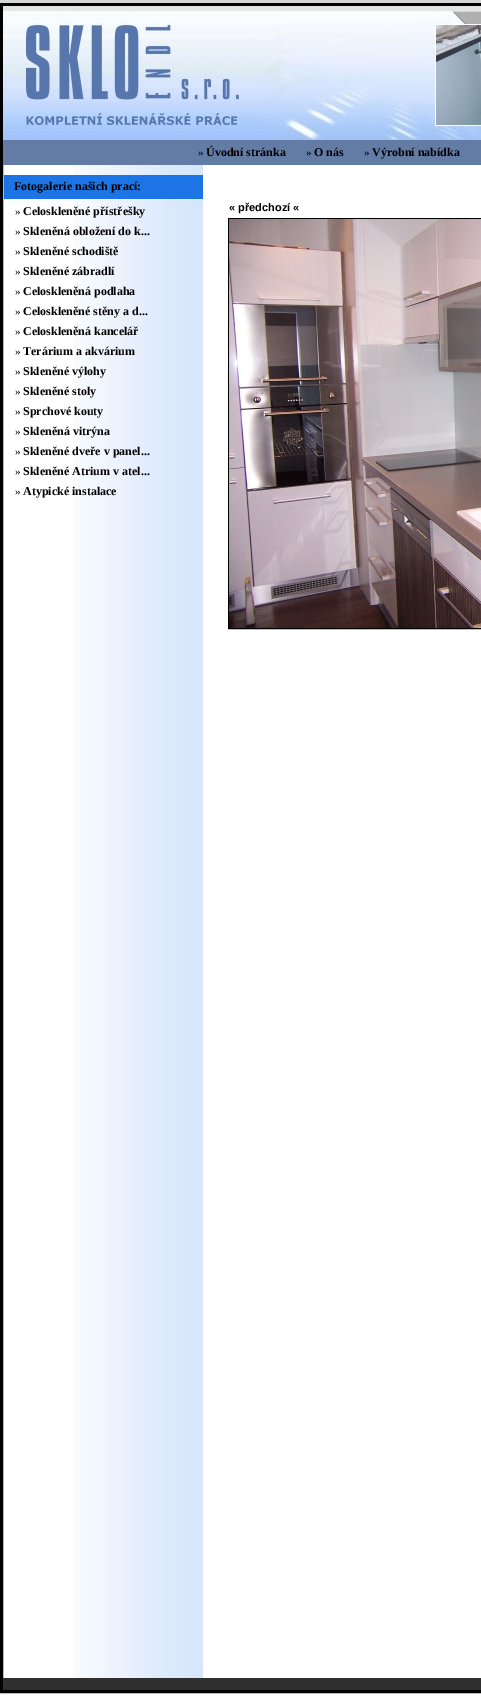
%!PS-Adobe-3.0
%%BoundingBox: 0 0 481 1696
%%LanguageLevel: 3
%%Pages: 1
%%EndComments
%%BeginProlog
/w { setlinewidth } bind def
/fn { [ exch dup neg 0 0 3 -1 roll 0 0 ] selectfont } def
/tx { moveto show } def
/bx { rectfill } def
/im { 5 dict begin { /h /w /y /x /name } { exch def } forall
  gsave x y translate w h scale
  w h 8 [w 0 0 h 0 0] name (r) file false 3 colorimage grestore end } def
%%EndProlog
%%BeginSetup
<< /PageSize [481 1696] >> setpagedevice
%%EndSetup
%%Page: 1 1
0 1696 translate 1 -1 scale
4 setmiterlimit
1 setgray
0 0 481 1696 bx
(image0.raw) 0 0 481 3 im
0 setgray
3 w
1.5 4.5 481 1687 rectstroke
(image1.raw) 3 6 478 134 im
0.388 0.486 0.647 setrgbcolor
3 140 478 25 bx
/LiberationSerif-Regular 11 fn
0 setgray
(») 198 156 tx
/LiberationSerif-Bold 12 fn
(Úvodní stránka) 206 156 tx
/LiberationSerif-Regular 11 fn
(») 306 156 tx
/LiberationSerif-Bold 12 fn
(O nás) 314 156 tx
/LiberationSerif-Regular 11 fn
(») 364 156 tx
/LiberationSerif-Bold 12 fn
(Výrobní nabídka) 372 156 tx
(image2.raw) 73 165 130 1513 im
0.114 0.455 0.898 setrgbcolor
4 175 199 24 bx
0 setgray
(Fotogalerie našich prací:) 14 190 tx
/LiberationSerif-Regular 11 fn
(») 15 215 tx
/LiberationSerif-Bold 12 fn
(Celoskleněné přístřešky) 23 215 tx
/LiberationSerif-Regular 11 fn
(») 15 235 tx
/LiberationSerif-Bold 12 fn
(Skleněná obložení do k...) 23 235 tx
/LiberationSerif-Regular 11 fn
(») 15 255 tx
/LiberationSerif-Bold 12 fn
(Skleněné schodiště) 23 255 tx
/LiberationSerif-Regular 11 fn
(») 15 275 tx
/LiberationSerif-Bold 12 fn
(Skleněné zábradlí) 23 275 tx
/LiberationSerif-Regular 11 fn
(») 15 295 tx
/LiberationSerif-Bold 12 fn
(Celoskleněná podlaha) 23 295 tx
/LiberationSerif-Regular 11 fn
(») 15 315 tx
/LiberationSerif-Bold 12 fn
(Celoskleněné stěny a d...) 23 315 tx
/LiberationSerif-Regular 11 fn
(») 15 335 tx
/LiberationSerif-Bold 12 fn
(Celoskleněná kancelář) 23 335 tx
/LiberationSerif-Regular 11 fn
(») 15 355 tx
/LiberationSerif-Bold 12 fn
(Terárium a akvárium) 23 355 tx
/LiberationSerif-Regular 11 fn
(») 15 375 tx
/LiberationSerif-Bold 12 fn
(Skleněné výlohy) 23 375 tx
/LiberationSerif-Regular 11 fn
(») 15 395 tx
/LiberationSerif-Bold 12 fn
(Skleněné stoly) 23 395 tx
/LiberationSerif-Regular 11 fn
(») 15 415 tx
/LiberationSerif-Bold 12 fn
(Sprchové kouty) 23 415 tx
/LiberationSerif-Regular 11 fn
(») 15 435 tx
/LiberationSerif-Bold 12 fn
(Skleněná vitrýna) 23 435 tx
/LiberationSerif-Regular 11 fn
(») 15 455 tx
/LiberationSerif-Bold 12 fn
(Skleněné dveře v panel...) 23 455 tx
/LiberationSerif-Regular 11 fn
(») 15 475 tx
/LiberationSerif-Bold 12 fn
(Skleněné Atrium v atel...) 23 475 tx
/LiberationSerif-Regular 11 fn
(») 15 495 tx
/LiberationSerif-Bold 12 fn
(Atypické instalace) 23 495 tx
/LiberationSans-Bold 11 fn
(« předchozí «) 229 211 tx
1 w
228.5 218.5 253 410 rectstroke
(image3.raw) 229 219 252 409 im
0.184 setgray
3 1678 478 12 bx
showpage
%%EOF
